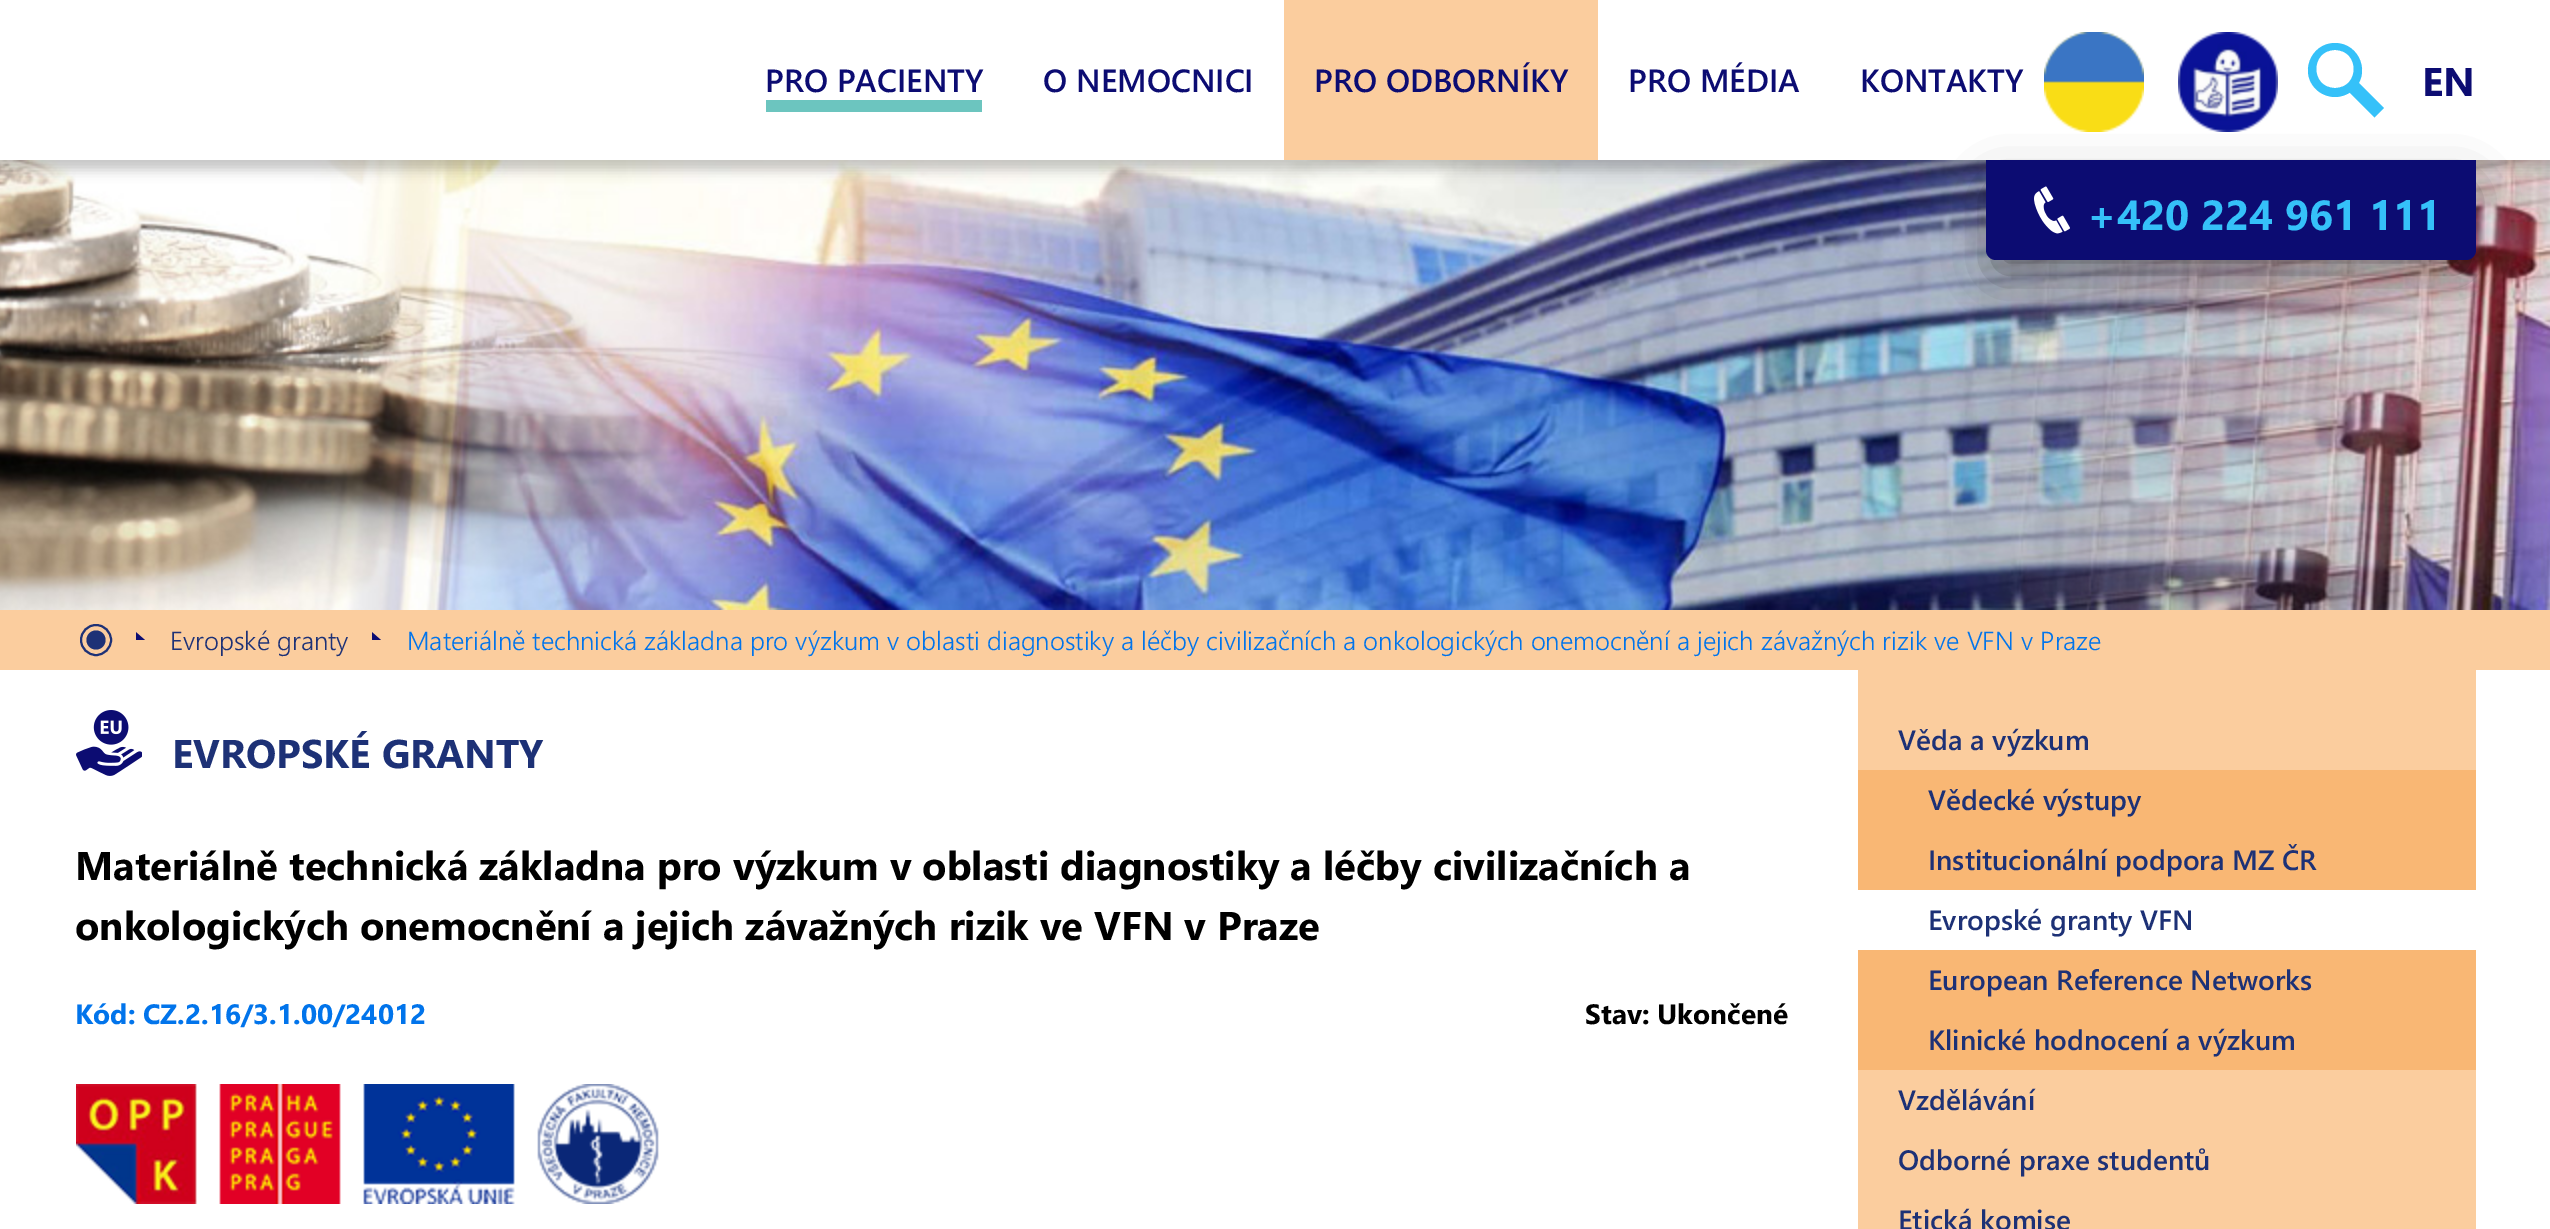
%!PS-Adobe-3.0
%%BoundingBox: 0 0 2550 1229
%%LanguageLevel: 3
%%Pages: 1
%%EndComments
%%BeginProlog
/m { moveto } bind def
/l { lineto } bind def
/c { curveto } bind def
/h { closepath } bind def
/f { fill } bind def
/S { stroke } bind def
/w { setlinewidth } bind def
/fn { [ exch dup neg 0 0 3 -1 roll 0 0 ] selectfont } def
/tx { moveto show } def
/bx { rectfill } def
/al { dup .setfillconstantalpha .setstrokeconstantalpha } def
/ci { newpath 0 360 arc closepath } def
/rr { 5 dict begin { /r /h /w /y /x } { exch def } forall
  x r add y moveto x w add y 2 copy h add r arct x w add y h add x 1 index r arct
  x y h add x y r arct x y 2 copy exch w add exch r arct closepath end } def
/sh { 12 dict begin { /a /b /q /h /w /y /x } { exch def } forall gsave /was 0 def
  9 -2 -9 { dup b mul 4 div /e exch def 1 sub .425 mul 2.718 exch exp 1 add a .99 .min exch div /now exch def
    1 1 now sub 1 was sub div sub al /was now def
    w h .min e 2 mul add 0 gt { x e sub y e sub w e 2 mul add h e 2 mul add
      q e add b .6 mul add w h .min 2 div e add .min 0 .max rr fill } if } for grestore end } def
/im { 5 dict begin { /h /w /y /x /name } { exch def } forall
  gsave x y translate w h scale
  w h 8 [w 0 0 h 0 0] name (r) file false 3 colorimage grestore end } def
%%EndProlog
%%BeginSetup
<< /PageSize [2550 1229] /PageUsesTransparency true >> setpagedevice
%%EndSetup
%%Page: 1 1
0 .pushpdf14devicefilter
0 1229 translate 1 -1 scale
4 setmiterlimit
1 setgray
0 0 2550 1229 bx
(image3.raw) 0 160 2550 450 im
0 setgray
-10 -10 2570 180 0 6 0.22 sh
1 setgray
0 0 2550 160 bx
0.424 0.773 0.749 setrgbcolor
766 100 216 12 bx
/SegoeUI-SemiBold 32 fn
0.047 0.047 0.447 setrgbcolor
(PRO PACIENTY) 765 92 tx
(O NEMOCNICI) 1043 92 tx
0.984 0.804 0.62 setrgbcolor
1284 0 314 160 bx
0.047 0.047 0.447 setrgbcolor
(PRO ODBORNÍKY) 1314 92 tx
(PRO MÉDIA) 1628 92 tx
(KONTAKTY) 1860 92 tx
(image0.raw) 2044 32 100 100 im
(image1.raw) 2178 32 100 100 im
0.208 0.757 0.976 setrgbcolor
2335 97 m 2329 97 2323 95 2318 91 c 2298 75 2310 43 2335 43 c 2360 43 2372 75 2352 91 c 2347 95 2341 97 2335 97 c h 2335 50 m 2310 50 2310 88 2335 88 c 2360 88 2360 50 2335 50 c h f
2344.5 87.5 m 2354 78 l 2384 108 l 2374.5 117.5 l h f
/SegoeUI-Bold 40 fn
0.047 0.047 0.447 setrgbcolor
(EN) 2422 96 tx
0 setgray
1996 190 470 80 0 25 0.47 sh
0.047 0.047 0.447 setrgbcolor
1986 160 m 2476 160 l 2476 250 l 2476 255.5 2471.5 260 2466 260 c 1996 260 l 1990.5 260 1986 255.5 1986 250 c h f
(image2.raw) 2034 186 36 48 im
/SegoeUI-Bold 42 fn
0.208 0.757 0.976 setrgbcolor
(+420 224 961 111) 2087 230 tx
0.984 0.804 0.62 setrgbcolor
0 610 2550 60 bx
0.114 0.192 0.463 setrgbcolor
2 w
96 640 15 ci S
96 640 9.5 ci f
(image4.raw) 136 632 9 8 im
/SegoeUI-Light 26 fn
(Evropské granty) 170 650 tx
(image4.raw) 372 632 9 8 im
0.004 0.455 0.922 setrgbcolor
(Materiálně technická základna pro výzkum v oblasti diagnostiky a léčby civilizačních a onkologických onemocnění a jejich závažných rizik ve VFN v Praze) 407 650 tx
(image5.raw) 76 710 66 66 im
/SegoeUI-Bold 40 fn
0.114 0.192 0.463 setrgbcolor
(EVROPSKÉ GRANTY) 172 768 tx
0 setgray
(Materiálně technická základna pro výzkum v oblasti diagnostiky a léčby civilizačních a) 75 880 tx
(onkologických onemocnění a jejich závažných rizik ve VFN v Praze) 75 940 tx
/SegoeUI-Bold 28 fn
0.004 0.455 0.922 setrgbcolor
(Kód: CZ.2.16/3.1.00/24012) 75 1024 tx
0 setgray
(Stav: Ukončené) 1585 1024 tx
(image6.raw) 76 1084 583 120 im
0.984 0.804 0.62 setrgbcolor
1858 670 618 559 bx
/SegoeUI-SemiBold 28 fn
0.114 0.192 0.463 setrgbcolor
(Věda a výzkum) 1898 750 tx
0.976 0.718 0.455 setrgbcolor
1858 770 618 300 bx
0.114 0.192 0.463 setrgbcolor
(Vědecké výstupy) 1928 810 tx
(Institucionální podpora MZ ČR) 1928 870 tx
1 setgray
1858 890 618 60 bx
0.114 0.192 0.463 setrgbcolor
(Evropské granty VFN) 1928 930 tx
(European Reference Networks) 1928 990 tx
(Klinické hodnocení a výzkum) 1928 1050 tx
(Vzdělávání) 1898 1110 tx
(Odborné praxe studentů) 1898 1170 tx
(Etická komise) 1898 1230 tx
.poppdf14devicefilter showpage
%%EOF
